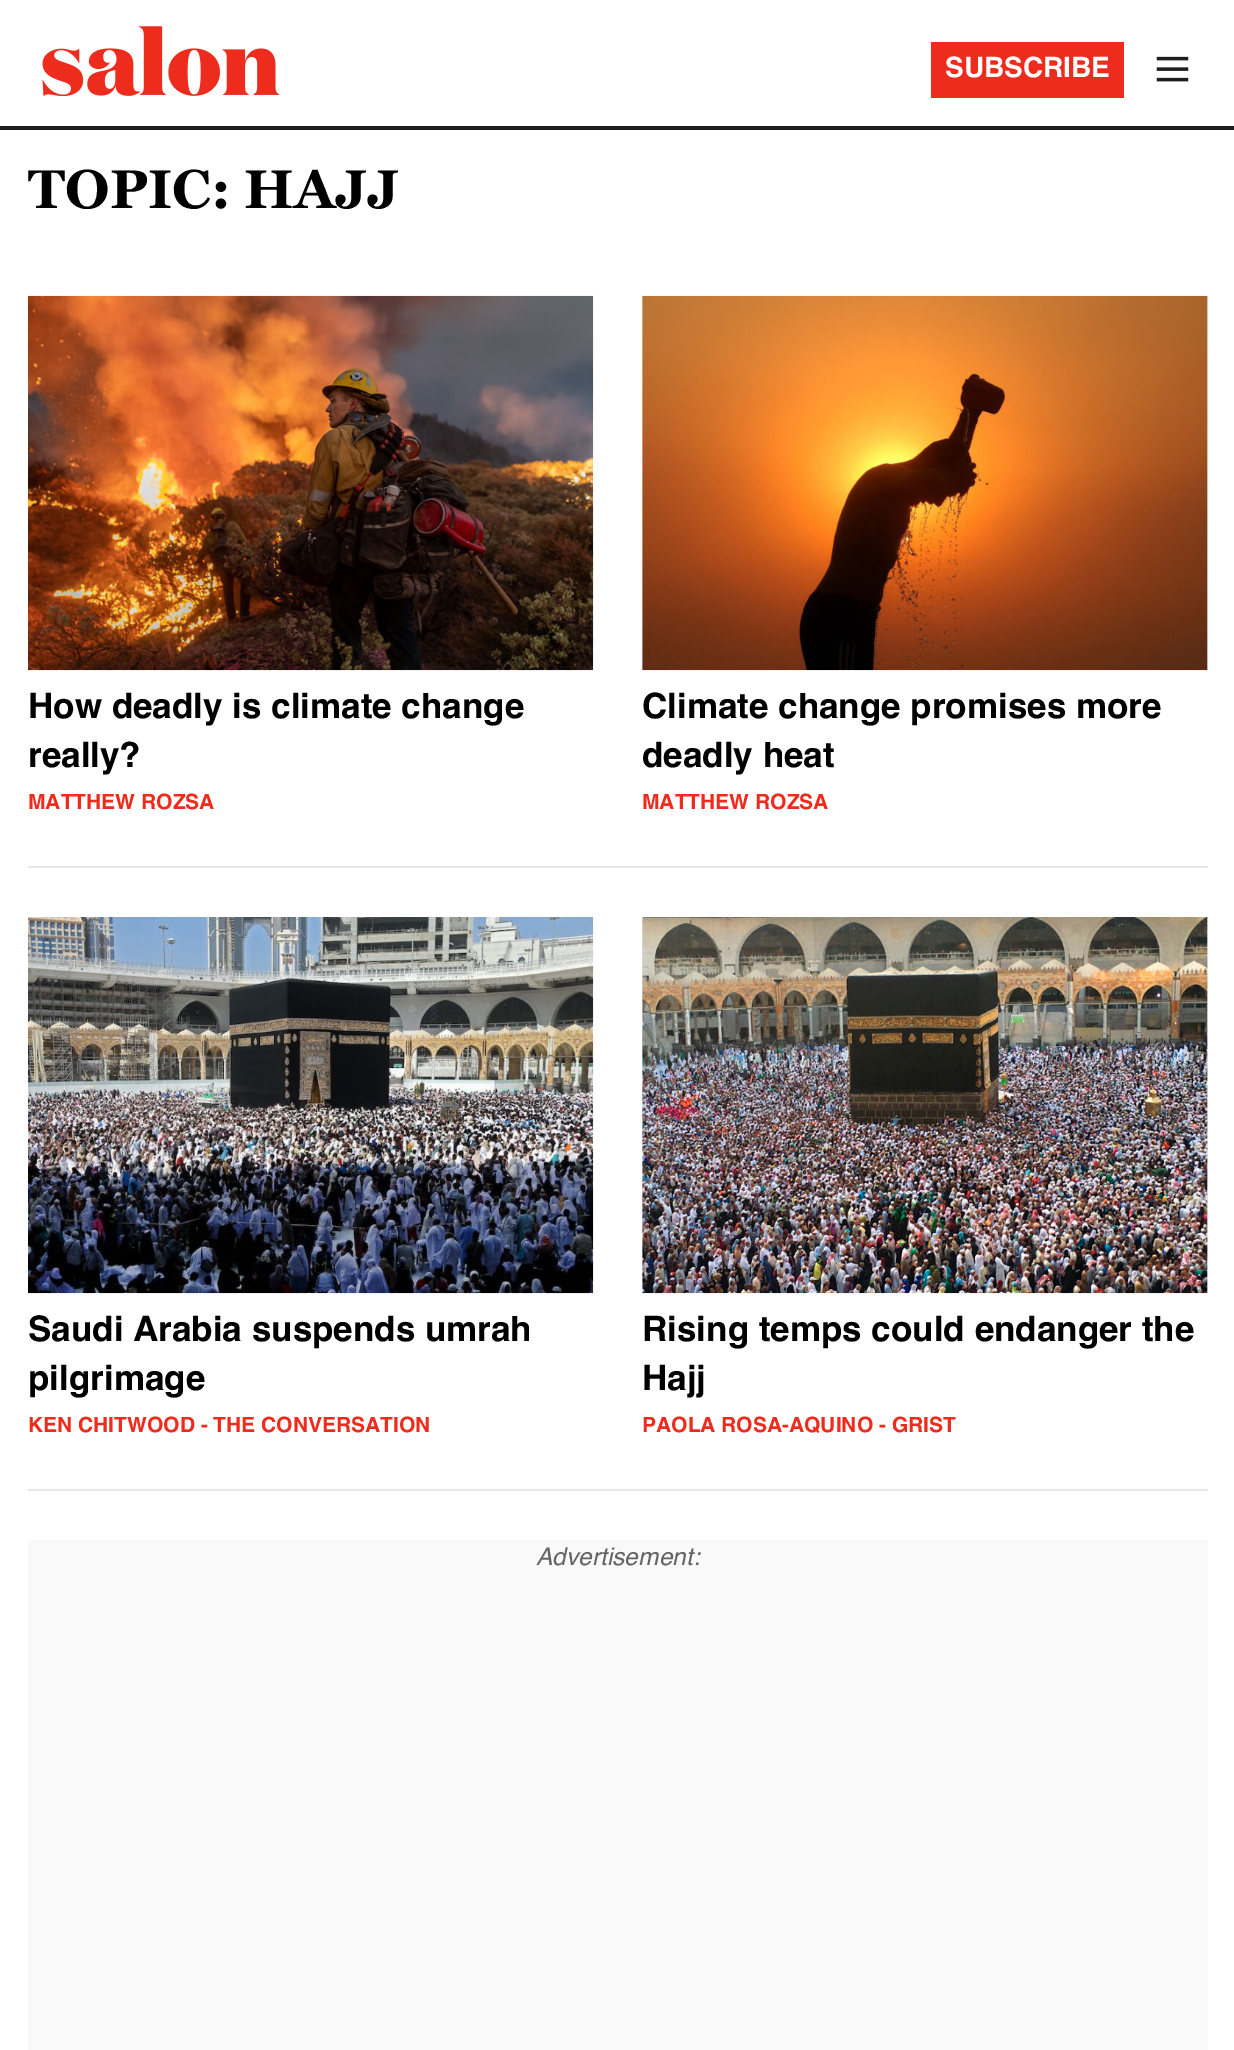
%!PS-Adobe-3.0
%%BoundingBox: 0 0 1234 2050
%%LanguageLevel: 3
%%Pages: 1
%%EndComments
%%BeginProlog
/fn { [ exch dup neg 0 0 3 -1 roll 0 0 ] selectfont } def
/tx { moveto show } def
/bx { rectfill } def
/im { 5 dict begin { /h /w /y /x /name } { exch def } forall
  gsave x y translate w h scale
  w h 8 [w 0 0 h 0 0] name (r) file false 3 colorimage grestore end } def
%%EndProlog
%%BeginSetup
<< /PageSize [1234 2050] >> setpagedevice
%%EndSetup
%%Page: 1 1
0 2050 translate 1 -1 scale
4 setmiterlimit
1 setgray
0 0 1234 2050 bx
0.118 setgray
0 126 1234 4 bx
(image0.raw) 42 26 238 70 im
0.929 0.173 0.114 setrgbcolor
931 42 193 56 bx
/Helvetica-Bold 28 fn
1 setgray
(SUBSCRIBE) 945 77 tx
(image1.raw) 1156 56 33 26 im
/Georgia-Bold 54.25 fn
0 setgray
(TOPIC: HAJJ) 28 208 tx
(image2.raw) 28 295 566 376 im
/Helvetica-Bold 35 fn
(How deadly is climate change) 28 718 tx
(really?) 28 767 tx
/Helvetica-Bold 21 fn
0.929 0.173 0.114 setrgbcolor
(MATTHEW ROZSA) 28 809 tx
0.902 setgray
642 296 566 374 bx
(image3.raw) 642 295 566 376 im
/Helvetica-Bold 35 fn
0 setgray
(Climate change promises more) 642 718 tx
(deadly heat) 642 767 tx
/Helvetica-Bold 21 fn
0.929 0.173 0.114 setrgbcolor
(MATTHEW ROZSA) 642 809 tx
0.898 0.906 0.922 setrgbcolor
28 866 1180 2 bx
(image4.raw) 28 917 566 377 im
/Helvetica-Bold 35 fn
0 setgray
(Saudi Arabia suspends umrah) 28 1341 tx
(pilgrimage) 28 1390 tx
/Helvetica-Bold 21 fn
0.929 0.173 0.114 setrgbcolor
(KEN CHITWOOD - THE CONVERSATION) 28 1432 tx
0.902 setgray
642 917 566 376 bx
(image5.raw) 642 917 566 377 im
/Helvetica-Bold 35 fn
0 setgray
(Rising temps could endanger the) 642 1341 tx
(Hajj) 642 1390 tx
/Helvetica-Bold 21 fn
0.929 0.173 0.114 setrgbcolor
(PAOLA ROSA-AQUINO - GRIST) 642 1432 tx
0.898 0.906 0.922 setrgbcolor
28 1489 1180 2 bx
0.976 setgray
28 1540 1180 510 bx
/Helvetica-Italic 24.5 fn
0.396 setgray
(Advertisement:) 536 1565 tx
showpage
%%EOF
